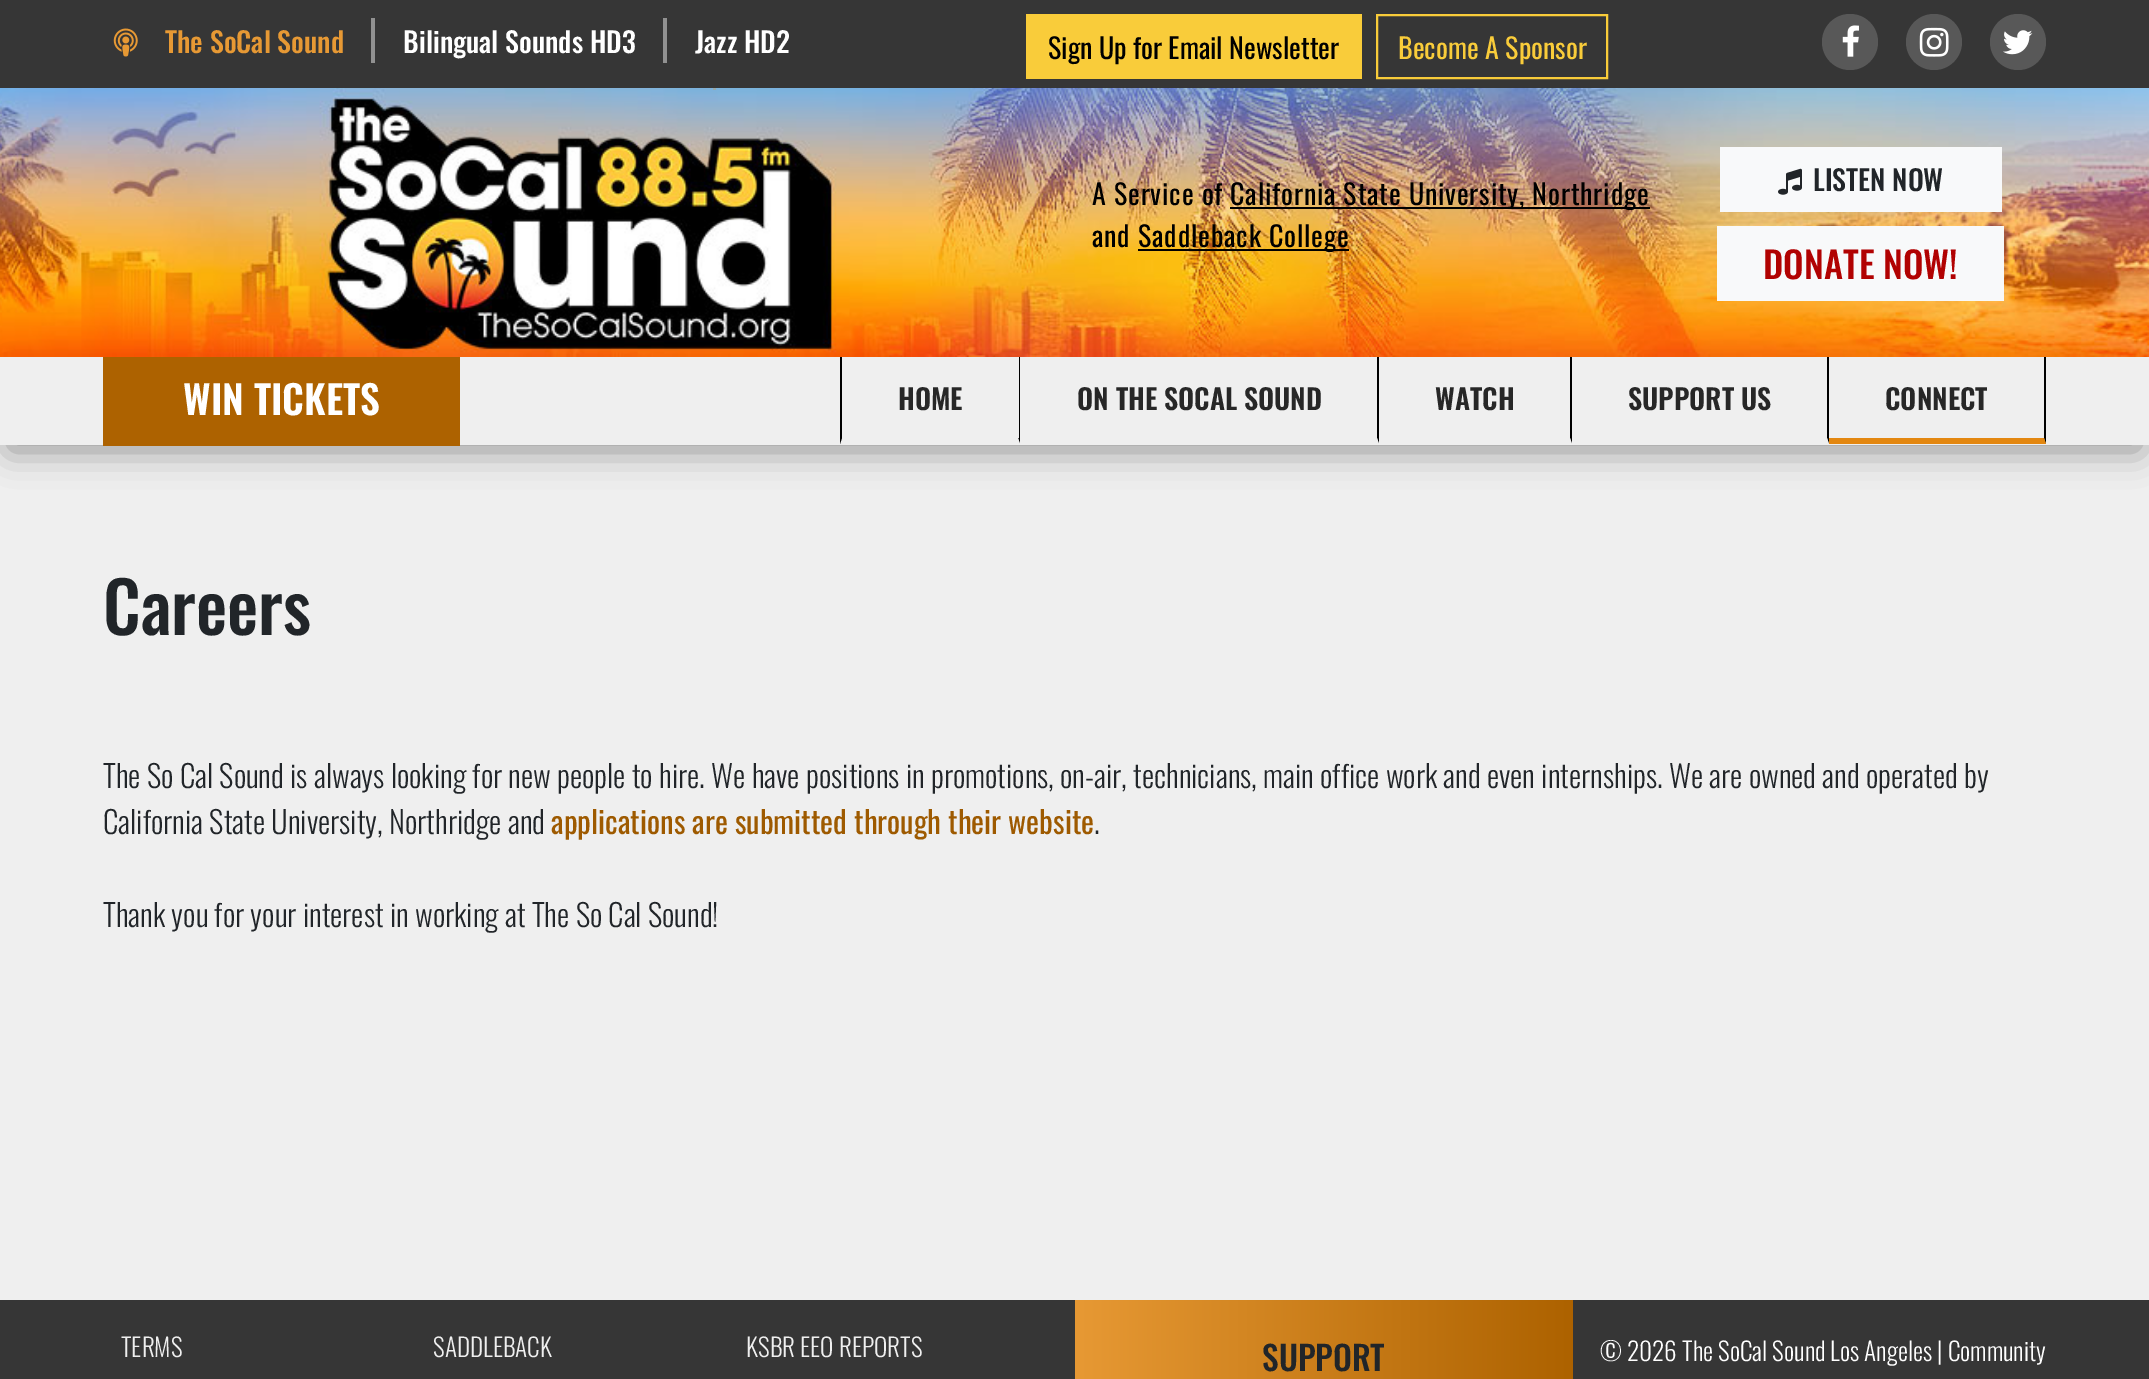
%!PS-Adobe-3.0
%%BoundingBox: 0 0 2149 1379
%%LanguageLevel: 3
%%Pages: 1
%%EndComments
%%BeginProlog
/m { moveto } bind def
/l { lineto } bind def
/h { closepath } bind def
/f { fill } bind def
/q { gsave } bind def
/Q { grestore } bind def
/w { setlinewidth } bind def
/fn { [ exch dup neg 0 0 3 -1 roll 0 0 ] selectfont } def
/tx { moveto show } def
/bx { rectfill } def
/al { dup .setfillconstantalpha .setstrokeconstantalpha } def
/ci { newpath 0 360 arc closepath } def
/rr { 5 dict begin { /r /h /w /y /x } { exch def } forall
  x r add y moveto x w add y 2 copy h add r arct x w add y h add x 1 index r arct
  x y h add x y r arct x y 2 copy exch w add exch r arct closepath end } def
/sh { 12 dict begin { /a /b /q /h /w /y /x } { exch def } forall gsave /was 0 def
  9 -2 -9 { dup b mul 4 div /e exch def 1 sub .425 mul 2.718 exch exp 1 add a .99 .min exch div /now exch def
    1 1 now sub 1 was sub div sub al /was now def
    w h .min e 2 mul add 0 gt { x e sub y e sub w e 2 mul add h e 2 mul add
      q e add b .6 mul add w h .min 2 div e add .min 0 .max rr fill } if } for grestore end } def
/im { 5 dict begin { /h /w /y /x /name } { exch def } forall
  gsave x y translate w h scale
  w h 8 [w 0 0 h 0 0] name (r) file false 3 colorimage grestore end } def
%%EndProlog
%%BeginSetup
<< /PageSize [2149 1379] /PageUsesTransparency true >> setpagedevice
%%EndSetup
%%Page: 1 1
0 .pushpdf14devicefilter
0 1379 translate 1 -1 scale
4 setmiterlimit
0.937 setgray
0 0 2149 1379 bx
0.212 setgray
0 0 2149 88 bx
0.569 setgray
371 18 4 45 bx
(image0.raw) 113 28 25 29 im
/Oswald-Medium 28 fn
0.906 0.6 0.204 setrgbcolor
(The SoCal Sound) 165 53 tx
0.569 setgray
663 18 4 45 bx
1 setgray
(Bilingual Sounds HD3) 403 53 tx
(Jazz HD2) 695 53 tx
0.976 0.8 0.227 setrgbcolor
1026 14 336 65 bx
/Oswald-Regular 28 fn
0 setgray
(Sign Up for Email Newsletter) 1048 59 tx
0.976 0.8 0.227 setrgbcolor
2 w
1377 15 230 63 rectstroke
(Become A Sponsor) 1398 59 tx
0.345 setgray
1850 42 28 ci f
(image1.raw) 1842 25 17 32 im
1934 42 28 ci f
(image2.raw) 1919 27 30 30 im
2018 42 28 ci f
(image3.raw) 2003 30 30 25 im
(image4.raw) 0 88 2149 269 im
0.24 al
0.953 0.549 0.047 setrgbcolor
713 88 3 2 bx
1 al
0 setgray
1092 205 m 0.85 0 (A Service of) ashow
1230 207 420 2 bx
1230 205 m 0.85 0 (California State University, Northridge) ashow
1092 247 m 0.85 0 (and) ashow
1138 249 211 2 bx
1138 247 m 0.85 0 (Saddleback College) ashow
0.973 0.976 0.98 setrgbcolor
1720 147 282 65 bx
(image5.raw) 1778 168 24 27 im
/Oswald-Medium 28 fn
0.129 0.145 0.161 setrgbcolor
(LISTEN NOW) 1813 191 tx
0.973 0.976 0.98 setrgbcolor
1717 226 287 75 bx
/Oswald-Medium 36.5 fn
0.694 0.008 0.008 setrgbcolor
(DONATE NOW!) 1763 279 tx
0 setgray
9 380 2131 70 0 17.5 0.4 sh
0.937 setgray
0 357 2149 88 bx
0.678 0.384 0 setrgbcolor
103 357 357 89 bx
/Oswald-SemiBold 39.25 fn
1 setgray
(WIN TICKETS) 183 415 tx
0 setgray
1020 357 m 1020 444 l 1018 438 l 1018 357 l h f
0.937 setgray
1020 444 m 840 444 l 842 438 l 1018 438 l h f
0 setgray
840 444 m 840 357 l 842 357 l 842 438 l h f
0.937 setgray
1018 357 1 81 bx
/Oswald-SemiBold 28 fn
0.153 setgray
(HOME) 898 410 tx
0 setgray
1379 357 m 1379 444 l 1377 438 l 1377 357 l h f
0.937 setgray
1379 444 m 1020 444 l 1020 438 l 1377 438 l h f
0.153 setgray
(ON THE SOCAL SOUND) 1077 410 tx
0 setgray
1572 357 m 1572 444 l 1570 438 l 1570 357 l h f
0.937 setgray
1572 444 m 1379 444 l 1379 438 l 1570 438 l h f
0.153 setgray
(WATCH) 1435 410 tx
0 setgray
1829 357 m 1829 444 l 1827 438 l 1827 357 l h f
0.937 setgray
1829 444 m 1572 444 l 1572 438 l 1827 438 l h f
0.153 setgray
(SUPPORT US) 1628 410 tx
0 setgray
2046 357 m 2046 444 l 2044 438 l 2044 357 l h f
0.89 0.529 0.063 setrgbcolor
2046 444 m 1829 444 l 1829 438 l 2044 438 l h f
0.153 setgray
(CONNECT) 1885 410 tx
/Oswald-Medium 70 fn
0.129 0.145 0.161 setrgbcolor
(Careers) 103 635 tx
/Oswald-Light 30.8 fn
(The So Cal Sound is always looking for new people to hire. We have positions in promotions, on-air, technicians, main office work and even internships. We are owned and operated by) 103 788 tx
(California State University, Northridge and) 103 834 tx
/Oswald-Regular 30.8 fn
0.62 0.353 0 setrgbcolor
(applications are submitted through their website) 551 834 tx
/Oswald-Light 30.8 fn
0.129 0.145 0.161 setrgbcolor
(.) 1094 834 tx
(Thank you for your interest in working at The So Cal Sound!) 103 927 tx
0.212 setgray
0 1300 2149 79 bx
/Oswald-Light 25.25 fn
0.937 setgray
(TERMS) 121 1357 tx
(SADDLEBACK) 433 1357 tx
(KSBR EEO REPORTS) 746 1357 tx
q 1075 1300 m 1573 1300 l 1573 1379 l 1075 1379 l h clip newpath
<< /ShadingType 2 /ColorSpace /DeviceRGB /Coords [1075 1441 1573 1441] /Extend [true true] /Function << /FunctionType 2 /Domain [0 1] /C0 [0.906 0.6 0.204] /C1 [0.678 0.384 0] /N 1 >> >> shfill Q
/Oswald-Medium 33.5 fn
0.129 0.145 0.161 setrgbcolor
(SUPPORT) 1262 1371 tx
/Oswald-Light 25.25 fn
1 setgray
(© 2026 The SoCal Sound Los Angeles | Community) 1600 1361 tx
.poppdf14devicefilter showpage
%%EOF
